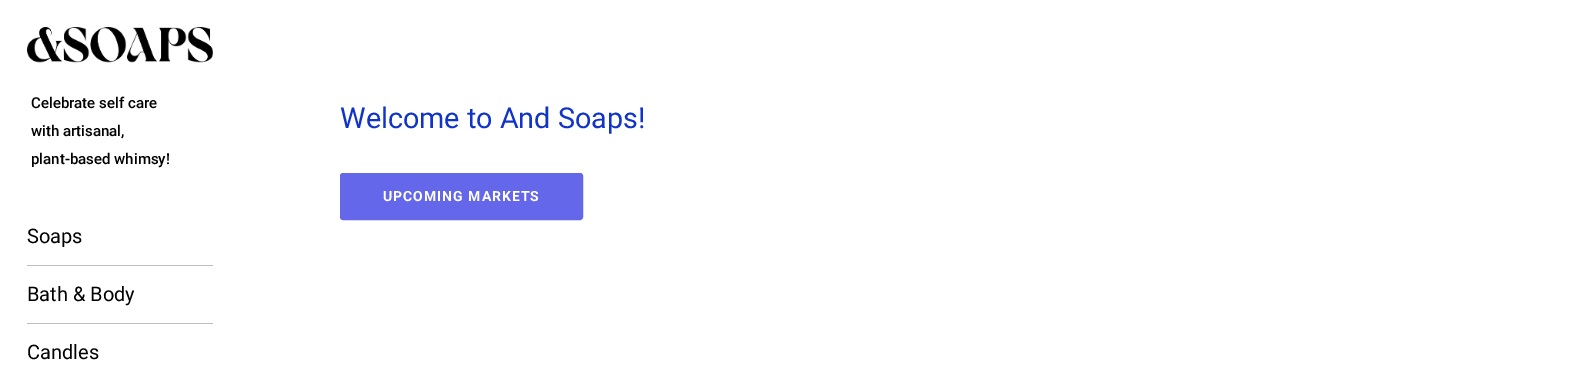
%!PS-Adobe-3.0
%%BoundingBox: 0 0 1589 381
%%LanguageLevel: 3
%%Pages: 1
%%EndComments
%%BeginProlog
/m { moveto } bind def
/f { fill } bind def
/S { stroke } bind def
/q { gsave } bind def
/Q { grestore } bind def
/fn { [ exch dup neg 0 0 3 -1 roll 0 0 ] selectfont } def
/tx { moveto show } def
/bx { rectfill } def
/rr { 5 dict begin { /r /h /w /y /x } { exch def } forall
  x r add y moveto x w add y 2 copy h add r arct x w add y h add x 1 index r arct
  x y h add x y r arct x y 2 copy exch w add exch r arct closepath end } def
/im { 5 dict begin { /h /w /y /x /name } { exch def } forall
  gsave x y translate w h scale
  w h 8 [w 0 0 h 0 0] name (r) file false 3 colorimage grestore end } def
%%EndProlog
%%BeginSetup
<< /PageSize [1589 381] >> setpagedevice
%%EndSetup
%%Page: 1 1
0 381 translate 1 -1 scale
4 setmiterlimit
1 setgray
0 0 1589 381 bx
(image0.raw) 27 27 186 36 im
/Roboto-Medium 15 fn
0 setgray
(Celebrate self care) 31 108 tx
(with artisanal,) 31 136 tx
(plant-based whimsy!) 31 164 tx
0.749 setgray
27 265 186 1 bx
/Roboto-Regular 20 fn
0 setgray
(Soaps) 27 243 tx
0.749 setgray
27 323 186 1 bx
0 setgray
(Bath & Body) 27 301 tx
(Candles) 27 359 tx
/Roboto-Regular 28.75 fn
0.063 0.204 0.788 setrgbcolor
(Welcome to And Soaps!) 340 128 tx
0.396 0.404 0.918 setrgbcolor
340.5 173.5 242 46 2.5 rr q f Q
S
/Roboto-Bold 14 fn
1 setgray
383 201 m 1 0 (UPCOMING MARKETS) ashow
showpage
%%EOF
